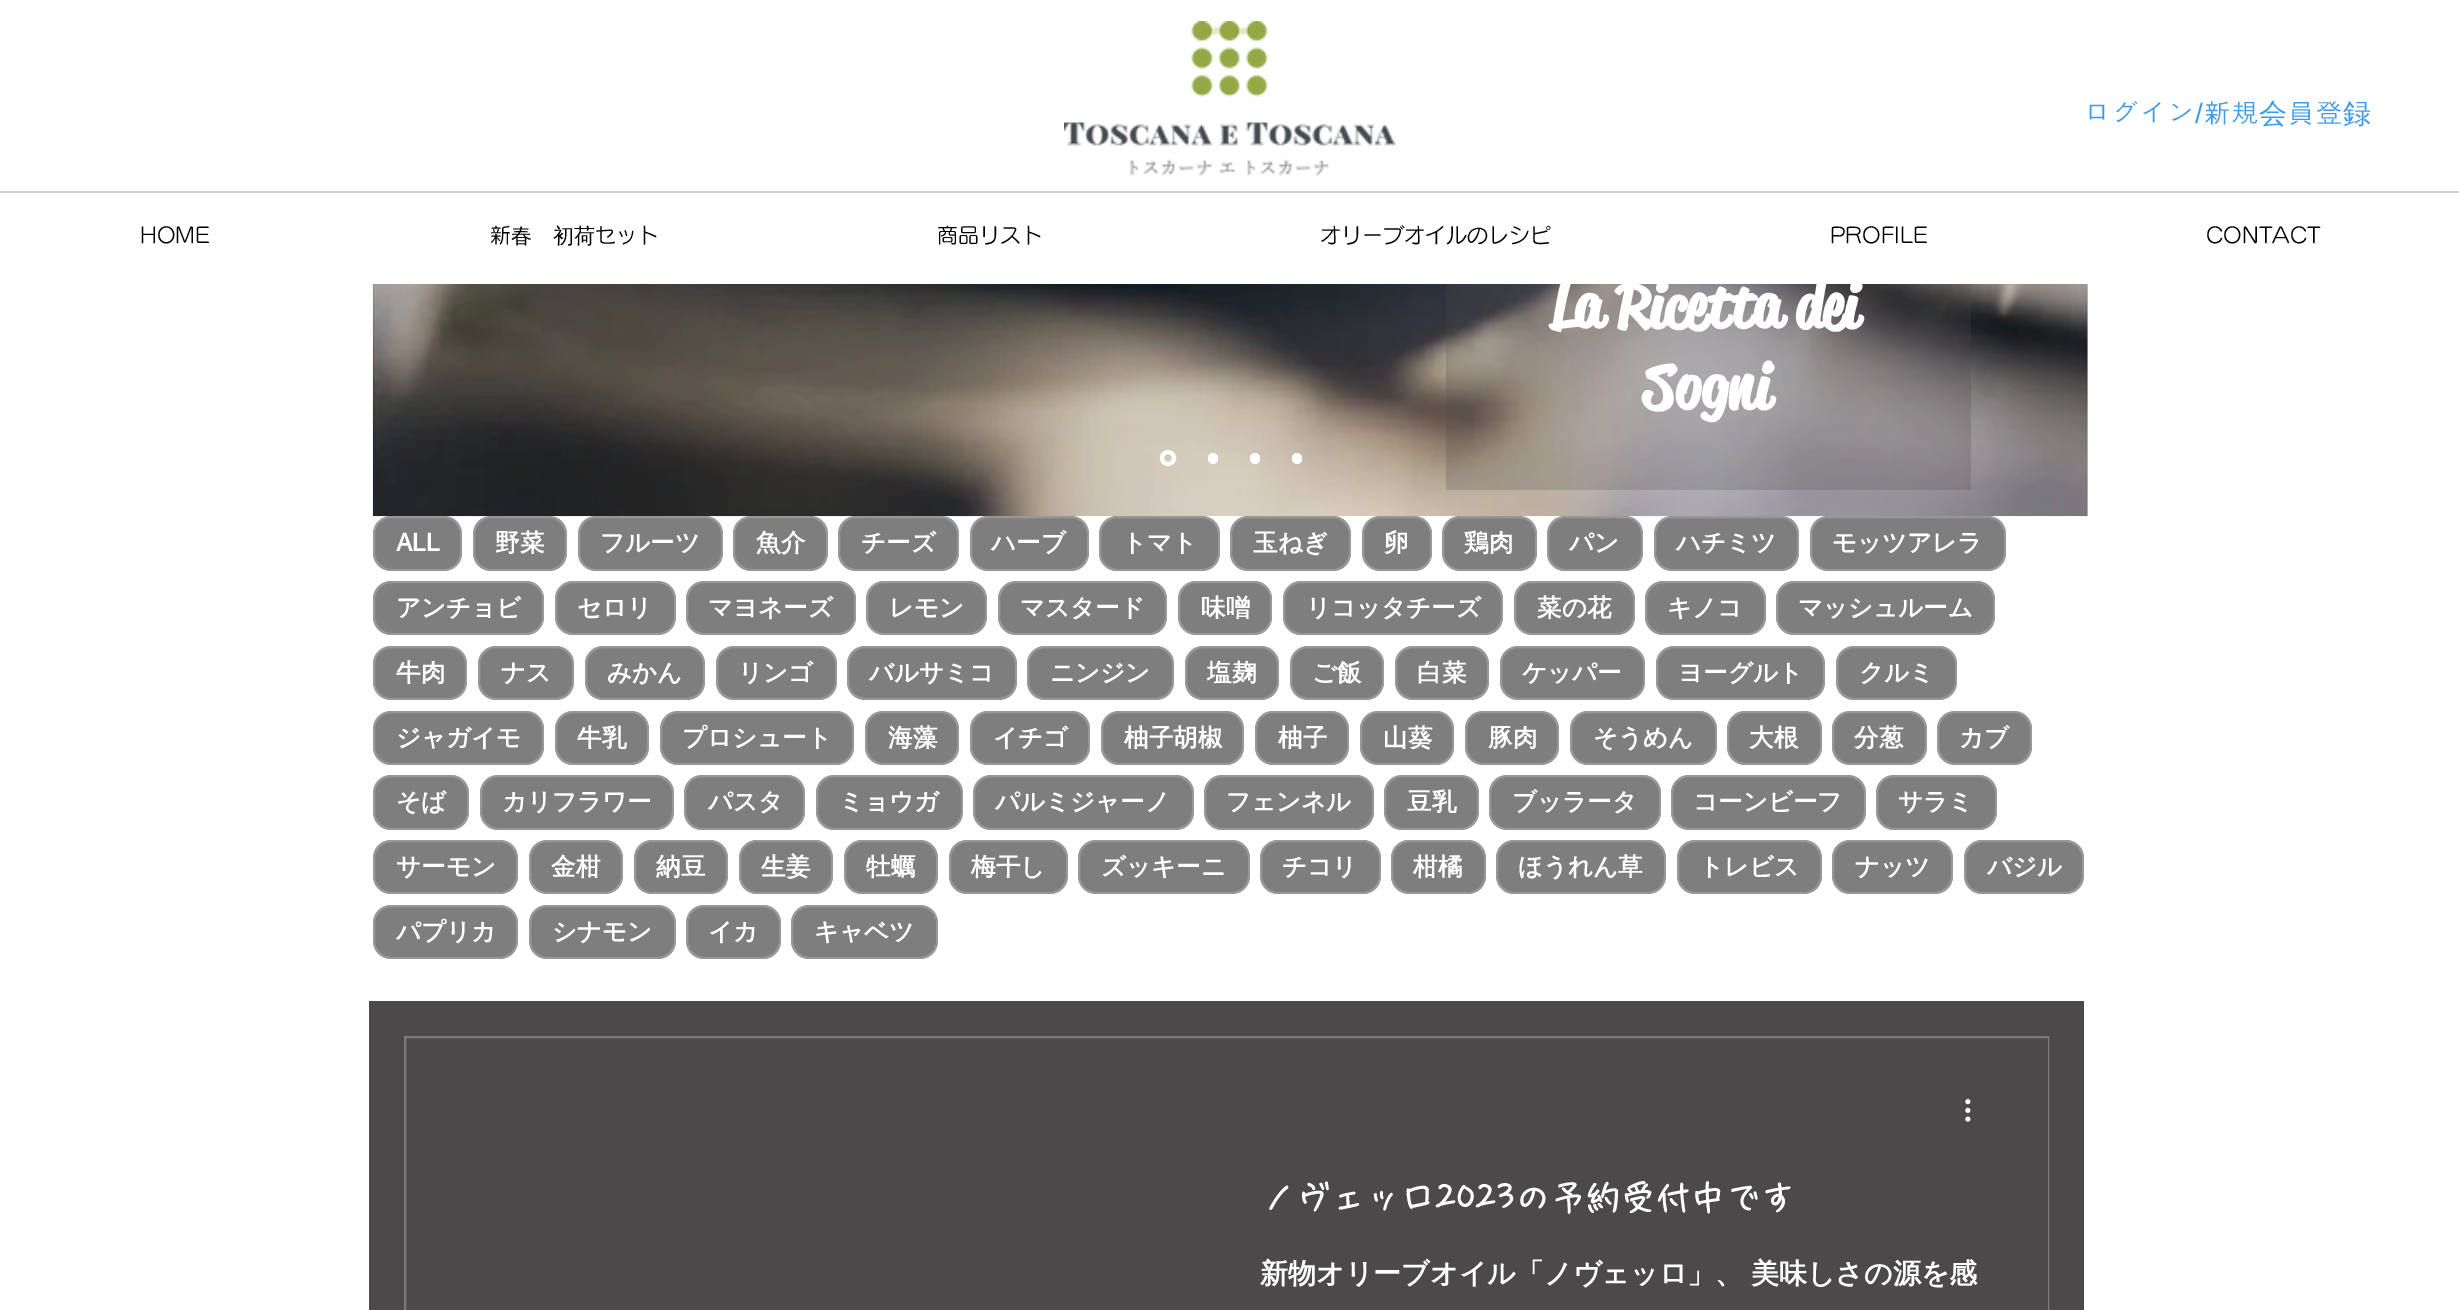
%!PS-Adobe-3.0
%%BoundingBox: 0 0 2459 1310
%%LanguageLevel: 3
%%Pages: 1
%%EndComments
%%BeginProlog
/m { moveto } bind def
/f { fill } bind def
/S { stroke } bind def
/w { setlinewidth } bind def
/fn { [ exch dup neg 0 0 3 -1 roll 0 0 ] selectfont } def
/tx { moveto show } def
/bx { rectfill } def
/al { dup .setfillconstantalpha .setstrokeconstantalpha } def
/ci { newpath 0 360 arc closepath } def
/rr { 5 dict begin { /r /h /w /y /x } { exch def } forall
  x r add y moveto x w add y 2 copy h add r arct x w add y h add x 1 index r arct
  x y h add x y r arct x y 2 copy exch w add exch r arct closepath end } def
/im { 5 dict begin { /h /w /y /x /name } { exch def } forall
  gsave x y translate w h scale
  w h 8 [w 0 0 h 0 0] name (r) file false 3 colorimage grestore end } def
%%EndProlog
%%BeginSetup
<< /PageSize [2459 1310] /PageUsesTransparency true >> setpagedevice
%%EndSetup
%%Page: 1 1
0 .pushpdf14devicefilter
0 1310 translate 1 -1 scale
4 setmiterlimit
1 setgray
0 0 2459 1310 bx
(image0.raw) 1064 21 331 155 im
/Dotum-Regular 28 fn
0.239 0.608 0.914 setrgbcolor
(ログイン) 2083 123 tx
/LiberationSans-Regular 28 fn
(/) 2195 123 tx
/Dotum-Regular 28 fn
(新規) 2203 123 tx
/WenQuanYiZenHei-Medium 28 fn
(会) 2259 123 tx
/Dotum-Regular 28 fn
(員登) 2287 123 tx
/WenQuanYiZenHei-Medium 28 fn
(録) 2343 123 tx
0.824 setgray
0 191 2459 2 bx
/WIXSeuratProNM-Medium 21 fn
0 setgray
(HOME) 140 243 tx
(新) 490 243 tx
/WenQuanYiZenHei-Medium 21 fn
(春　初荷) 511 243 tx
/WIXSeuratProNM-Medium 21 fn
(セット) 595 243 tx
(商品リスト) 937 243 tx
(オリーブオイルのレシピ) 1320 243 tx
(PROFILE) 1830 243 tx
(CONTACT) 2206 243 tx
(image1.raw) 372 284 1716 233 im
0.23 al
0.294 0.286 0.286 setrgbcolor
1446 284 525 206 bx
/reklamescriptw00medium-Bold 61.25 fn
1 al
1 setgray
(La Ricetta dei) 1550 327 tx
1643 408 m 1.25 0 (Sogni) ashow
4 w
1168 458 6 ci S
1208 453 10 11 5 rr f
1250 453 10 11 5 rr f
1292 453 10 11 5 rr f
0.71 al
0.294 0.286 0.286 setrgbcolor
373 516 89 55 18 rr f
0.2 al
1 setgray
2 w
374 517 87 53 17 rr S
/helvetica-Bold 24.5 fn
1 al
(ALL) 396 551 tx
0.71 al
0.294 0.286 0.286 setrgbcolor
473 516 94 55 18 rr f
0.2 al
1 setgray
474 517 92 53 17 rr S
/WenQuanYiZenHei-Bold 24.5 fn
1 al
(野菜) 495 551 tx
0.71 al
0.294 0.286 0.286 setrgbcolor
578 516 145 55 18 rr f
0.2 al
1 setgray
579 517 143 53 17 rr S
1 al
(フルーツ) 600 551 tx
0.71 al
0.294 0.286 0.286 setrgbcolor
733 516 95 55 18 rr f
0.2 al
1 setgray
734 517 93 53 17 rr S
1 al
(魚介) 756 551 tx
0.71 al
0.294 0.286 0.286 setrgbcolor
838 516 121 55 18 rr f
0.2 al
1 setgray
839 517 119 53 17 rr S
1 al
(チーズ) 861 551 tx
0.71 al
0.294 0.286 0.286 setrgbcolor
970 516 119 55 18 rr f
0.2 al
1 setgray
971 517 117 53 17 rr S
1 al
(ハーブ) 991 551 tx
0.71 al
0.294 0.286 0.286 setrgbcolor
1099 516 121 55 18 rr f
0.2 al
1 setgray
1100 517 119 53 17 rr S
1 al
(トマト) 1122 551 tx
0.71 al
0.294 0.286 0.286 setrgbcolor
1230 516 121 55 18 rr f
0.2 al
1 setgray
1231 517 119 53 17 rr S
1 al
(玉ねぎ) 1253 551 tx
0.71 al
0.294 0.286 0.286 setrgbcolor
1362 516 70 55 18 rr f
0.2 al
1 setgray
1363 517 68 53 17 rr S
1 al
(卵) 1384 551 tx
0.71 al
0.294 0.286 0.286 setrgbcolor
1442 516 95 55 18 rr f
0.2 al
1 setgray
1443 517 93 53 17 rr S
1 al
(鶏肉) 1464 551 tx
0.71 al
0.294 0.286 0.286 setrgbcolor
1547 516 96 55 18 rr f
0.2 al
1 setgray
1548 517 94 53 17 rr S
1 al
(パン) 1569 551 tx
0.71 al
0.294 0.286 0.286 setrgbcolor
1654 516 145 55 18 rr f
0.2 al
1 setgray
1655 517 143 53 17 rr S
1 al
(ハチミツ) 1676 551 tx
0.71 al
0.294 0.286 0.286 setrgbcolor
1810 516 196 55 18 rr f
0.2 al
1 setgray
1811 517 194 53 17 rr S
1 al
(モッツアレラ) 1832 551 tx
0.498 0.494 0.494 setrgbcolor
373 581 171 54 18 rr f
0.2 al
1 setgray
374 582 169 52 17 rr S
1 al
(アンチョビ) 396 616 tx
0.498 0.494 0.494 setrgbcolor
555 581 121 54 18 rr f
0.2 al
1 setgray
556 582 119 52 17 rr S
1 al
(セロリ) 577 616 tx
0.498 0.494 0.494 setrgbcolor
686 581 170 54 18 rr f
0.2 al
1 setgray
687 582 168 52 17 rr S
1 al
(マヨネーズ) 708 616 tx
0.498 0.494 0.494 setrgbcolor
866 581 121 54 18 rr f
0.2 al
1 setgray
867 582 119 52 17 rr S
1 al
(レモン) 889 616 tx
0.498 0.494 0.494 setrgbcolor
998 581 169 54 18 rr f
0.2 al
1 setgray
999 582 167 52 17 rr S
1 al
(マスタード) 1020 616 tx
0.498 0.494 0.494 setrgbcolor
1178 581 94 54 18 rr f
0.2 al
1 setgray
1179 582 92 52 17 rr S
1 al
(味噌) 1201 616 tx
0.498 0.494 0.494 setrgbcolor
1283 581 220 54 18 rr f
0.2 al
1 setgray
1284 582 218 52 17 rr S
1 al
(リコッタチーズ) 1306 616 tx
0.498 0.494 0.494 setrgbcolor
1514 581 121 54 18 rr f
0.2 al
1 setgray
1515 582 119 52 17 rr S
1 al
(菜の花) 1537 616 tx
0.498 0.494 0.494 setrgbcolor
1645 581 121 54 18 rr f
0.2 al
1 setgray
1646 582 119 52 17 rr S
1 al
(キノコ) 1667 616 tx
0.498 0.494 0.494 setrgbcolor
1776 581 219 54 18 rr f
0.2 al
1 setgray
1777 582 217 52 17 rr S
1 al
(マッシュルーム) 1798 616 tx
0.498 0.494 0.494 setrgbcolor
373 646 94 54 18 rr f
0.2 al
1 setgray
374 647 92 52 17 rr S
1 al
(牛肉) 396 681 tx
0.498 0.494 0.494 setrgbcolor
478 646 96 54 18 rr f
0.2 al
1 setgray
479 647 94 52 17 rr S
1 al
(ナス) 501 681 tx
0.498 0.494 0.494 setrgbcolor
585 646 120 54 18 rr f
0.2 al
1 setgray
586 647 118 52 17 rr S
1 al
(みかん) 607 681 tx
0.498 0.494 0.494 setrgbcolor
716 646 121 54 18 rr f
0.2 al
1 setgray
717 647 119 52 17 rr S
1 al
(リンゴ) 738 681 tx
0.498 0.494 0.494 setrgbcolor
847 646 170 54 18 rr f
0.2 al
1 setgray
848 647 168 52 17 rr S
1 al
(バルサミコ) 869 681 tx
0.498 0.494 0.494 setrgbcolor
1027 646 147 54 18 rr f
0.2 al
1 setgray
1028 647 145 52 17 rr S
1 al
(ニンジン) 1050 681 tx
0.498 0.494 0.494 setrgbcolor
1185 646 94 54 18 rr f
0.2 al
1 setgray
1186 647 92 52 17 rr S
1 al
(塩麹) 1207 681 tx
0.498 0.494 0.494 setrgbcolor
1290 646 94 54 18 rr f
0.2 al
1 setgray
1291 647 92 52 17 rr S
1 al
(ご飯) 1312 681 tx
0.498 0.494 0.494 setrgbcolor
1395 646 94 54 18 rr f
0.2 al
1 setgray
1396 647 92 52 17 rr S
1 al
(白菜) 1417 681 tx
0.498 0.494 0.494 setrgbcolor
1500 646 145 54 18 rr f
0.2 al
1 setgray
1501 647 143 52 17 rr S
1 al
(ケッパー) 1522 681 tx
0.498 0.494 0.494 setrgbcolor
1656 646 169 54 18 rr f
0.2 al
1 setgray
1657 647 167 52 17 rr S
1 al
(ヨーグルト) 1678 681 tx
0.498 0.494 0.494 setrgbcolor
1836 646 121 54 18 rr f
0.2 al
1 setgray
1837 647 119 52 17 rr S
1 al
(クルミ) 1859 681 tx
0.498 0.494 0.494 setrgbcolor
373 711 171 54 18 rr f
0.2 al
1 setgray
374 712 169 52 17 rr S
1 al
(ジャガイモ) 396 746 tx
0.498 0.494 0.494 setrgbcolor
555 711 94 54 18 rr f
0.2 al
1 setgray
556 712 92 52 17 rr S
1 al
(牛乳) 577 746 tx
0.498 0.494 0.494 setrgbcolor
660 711 194 54 18 rr f
0.2 al
1 setgray
661 712 192 52 17 rr S
1 al
(プロシュート) 682 746 tx
0.498 0.494 0.494 setrgbcolor
865 711 94 54 18 rr f
0.2 al
1 setgray
866 712 92 52 17 rr S
1 al
(海藻) 888 746 tx
0.498 0.494 0.494 setrgbcolor
970 711 120 54 18 rr f
0.2 al
1 setgray
971 712 118 52 17 rr S
1 al
(イチゴ) 993 746 tx
0.498 0.494 0.494 setrgbcolor
1101 711 143 54 18 rr f
0.2 al
1 setgray
1102 712 141 52 17 rr S
1 al
(柚子胡椒) 1124 746 tx
0.498 0.494 0.494 setrgbcolor
1255 711 94 54 18 rr f
0.2 al
1 setgray
1256 712 92 52 17 rr S
1 al
(柚子) 1278 746 tx
0.498 0.494 0.494 setrgbcolor
1360 711 94 54 18 rr f
0.2 al
1 setgray
1361 712 92 52 17 rr S
1 al
(山葵) 1383 746 tx
0.498 0.494 0.494 setrgbcolor
1465 711 94 54 18 rr f
0.2 al
1 setgray
1466 712 92 52 17 rr S
1 al
(豚肉) 1488 746 tx
0.498 0.494 0.494 setrgbcolor
1570 711 147 54 18 rr f
0.2 al
1 setgray
1571 712 145 52 17 rr S
1 al
(そうめん) 1593 746 tx
0.498 0.494 0.494 setrgbcolor
1727 711 95 54 18 rr f
0.2 al
1 setgray
1728 712 93 52 17 rr S
1 al
(大根) 1749 746 tx
0.498 0.494 0.494 setrgbcolor
1832 711 95 54 18 rr f
0.2 al
1 setgray
1833 712 93 52 17 rr S
1 al
(分葱) 1854 746 tx
0.498 0.494 0.494 setrgbcolor
1937 711 95 54 18 rr f
0.2 al
1 setgray
1938 712 93 52 17 rr S
1 al
(カブ) 1959 746 tx
0.498 0.494 0.494 setrgbcolor
373 775 96 55 18 rr f
0.2 al
1 setgray
374 776 94 53 17 rr S
1 al
(そば) 396 810 tx
0.498 0.494 0.494 setrgbcolor
480 775 194 55 18 rr f
0.2 al
1 setgray
481 776 192 53 17 rr S
1 al
(カリフラワー) 502 810 tx
0.498 0.494 0.494 setrgbcolor
684 775 121 55 18 rr f
0.2 al
1 setgray
685 776 119 53 17 rr S
1 al
(パスタ) 708 810 tx
0.498 0.494 0.494 setrgbcolor
816 775 147 55 18 rr f
0.2 al
1 setgray
817 776 145 53 17 rr S
1 al
(ミョウガ) 839 810 tx
0.498 0.494 0.494 setrgbcolor
973 775 221 55 18 rr f
0.2 al
1 setgray
974 776 219 53 17 rr S
1 al
(パルミジャーノ) 995 810 tx
0.498 0.494 0.494 setrgbcolor
1204 775 170 55 18 rr f
0.2 al
1 setgray
1205 776 168 53 17 rr S
1 al
(フェンネル) 1226 810 tx
0.498 0.494 0.494 setrgbcolor
1384 775 95 55 18 rr f
0.2 al
1 setgray
1385 776 93 53 17 rr S
1 al
(豆乳) 1407 810 tx
0.498 0.494 0.494 setrgbcolor
1489 775 172 55 18 rr f
0.2 al
1 setgray
1490 776 170 53 17 rr S
1 al
(ブッラータ) 1512 810 tx
0.498 0.494 0.494 setrgbcolor
1671 775 195 55 18 rr f
0.2 al
1 setgray
1672 776 193 53 17 rr S
1 al
(コーンビーフ) 1693 810 tx
0.498 0.494 0.494 setrgbcolor
1876 775 121 55 18 rr f
0.2 al
1 setgray
1877 776 119 53 17 rr S
1 al
(サラミ) 1898 810 tx
0.498 0.494 0.494 setrgbcolor
373 840 145 54 18 rr f
0.2 al
1 setgray
374 841 143 52 17 rr S
1 al
(サーモン) 396 875 tx
0.498 0.494 0.494 setrgbcolor
529 840 94 54 18 rr f
0.2 al
1 setgray
530 841 92 52 17 rr S
1 al
(金柑) 551 875 tx
0.498 0.494 0.494 setrgbcolor
634 840 94 54 18 rr f
0.2 al
1 setgray
635 841 92 52 17 rr S
1 al
(納豆) 656 875 tx
0.498 0.494 0.494 setrgbcolor
739 840 94 54 18 rr f
0.2 al
1 setgray
740 841 92 52 17 rr S
1 al
(生姜) 761 875 tx
0.498 0.494 0.494 setrgbcolor
844 840 94 54 18 rr f
0.2 al
1 setgray
845 841 92 52 17 rr S
1 al
(牡蠣) 866 875 tx
0.498 0.494 0.494 setrgbcolor
949 840 119 54 18 rr f
0.2 al
1 setgray
950 841 117 52 17 rr S
1 al
(梅干し) 971 875 tx
0.498 0.494 0.494 setrgbcolor
1078 840 172 54 18 rr f
0.2 al
1 setgray
1079 841 170 52 17 rr S
1 al
(ズッキーニ) 1101 875 tx
0.498 0.494 0.494 setrgbcolor
1260 840 121 54 18 rr f
0.2 al
1 setgray
1261 841 119 52 17 rr S
1 al
(チコリ) 1282 875 tx
0.498 0.494 0.494 setrgbcolor
1391 840 95 54 18 rr f
0.2 al
1 setgray
1392 841 93 52 17 rr S
1 al
(柑橘) 1413 875 tx
0.498 0.494 0.494 setrgbcolor
1496 840 170 54 18 rr f
0.2 al
1 setgray
1497 841 168 52 17 rr S
1 al
(ほうれん草) 1518 875 tx
0.498 0.494 0.494 setrgbcolor
1677 840 145 54 18 rr f
0.2 al
1 setgray
1678 841 143 52 17 rr S
1 al
(トレビス) 1699 875 tx
0.498 0.494 0.494 setrgbcolor
1832 840 121 54 18 rr f
0.2 al
1 setgray
1833 841 119 52 17 rr S
1 al
(ナッツ) 1855 875 tx
0.498 0.494 0.494 setrgbcolor
1964 840 120 54 18 rr f
0.2 al
1 setgray
1965 841 118 52 17 rr S
1 al
(バジル) 1987 875 tx
0.498 0.494 0.494 setrgbcolor
373 905 145 54 18 rr f
0.2 al
1 setgray
374 906 143 52 17 rr S
1 al
(パプリカ) 396 940 tx
0.498 0.494 0.494 setrgbcolor
529 905 147 54 18 rr f
0.2 al
1 setgray
530 906 145 52 17 rr S
1 al
(シナモン) 552 940 tx
0.498 0.494 0.494 setrgbcolor
686 905 95 54 18 rr f
0.2 al
1 setgray
687 906 93 52 17 rr S
1 al
(イカ) 708 940 tx
0.498 0.494 0.494 setrgbcolor
791 905 147 54 18 rr f
0.2 al
1 setgray
792 906 145 52 17 rr S
1 al
(キャベツ) 814 940 tx
0.294 0.286 0.286 setrgbcolor
369 1001 1715 309 bx
0.478 setgray
405 1037 1643 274 rectstroke
0.294 0.286 0.286 setrgbcolor
2047 1038 1 272 bx
(image2.raw) 1965 1099 6 23 im
/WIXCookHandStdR-Bold 35 fn
1 setgray
(ノヴェッロ2023の予約受付中です) 1260 1211 tx
/WenQuanYiZenHei-Bold 28 fn
1260 1283 m -1 0 32 (新物オリーブオイル「ノヴェッロ」、 美味しさの源を感) widthshow
.poppdf14devicefilter showpage
%%EOF
